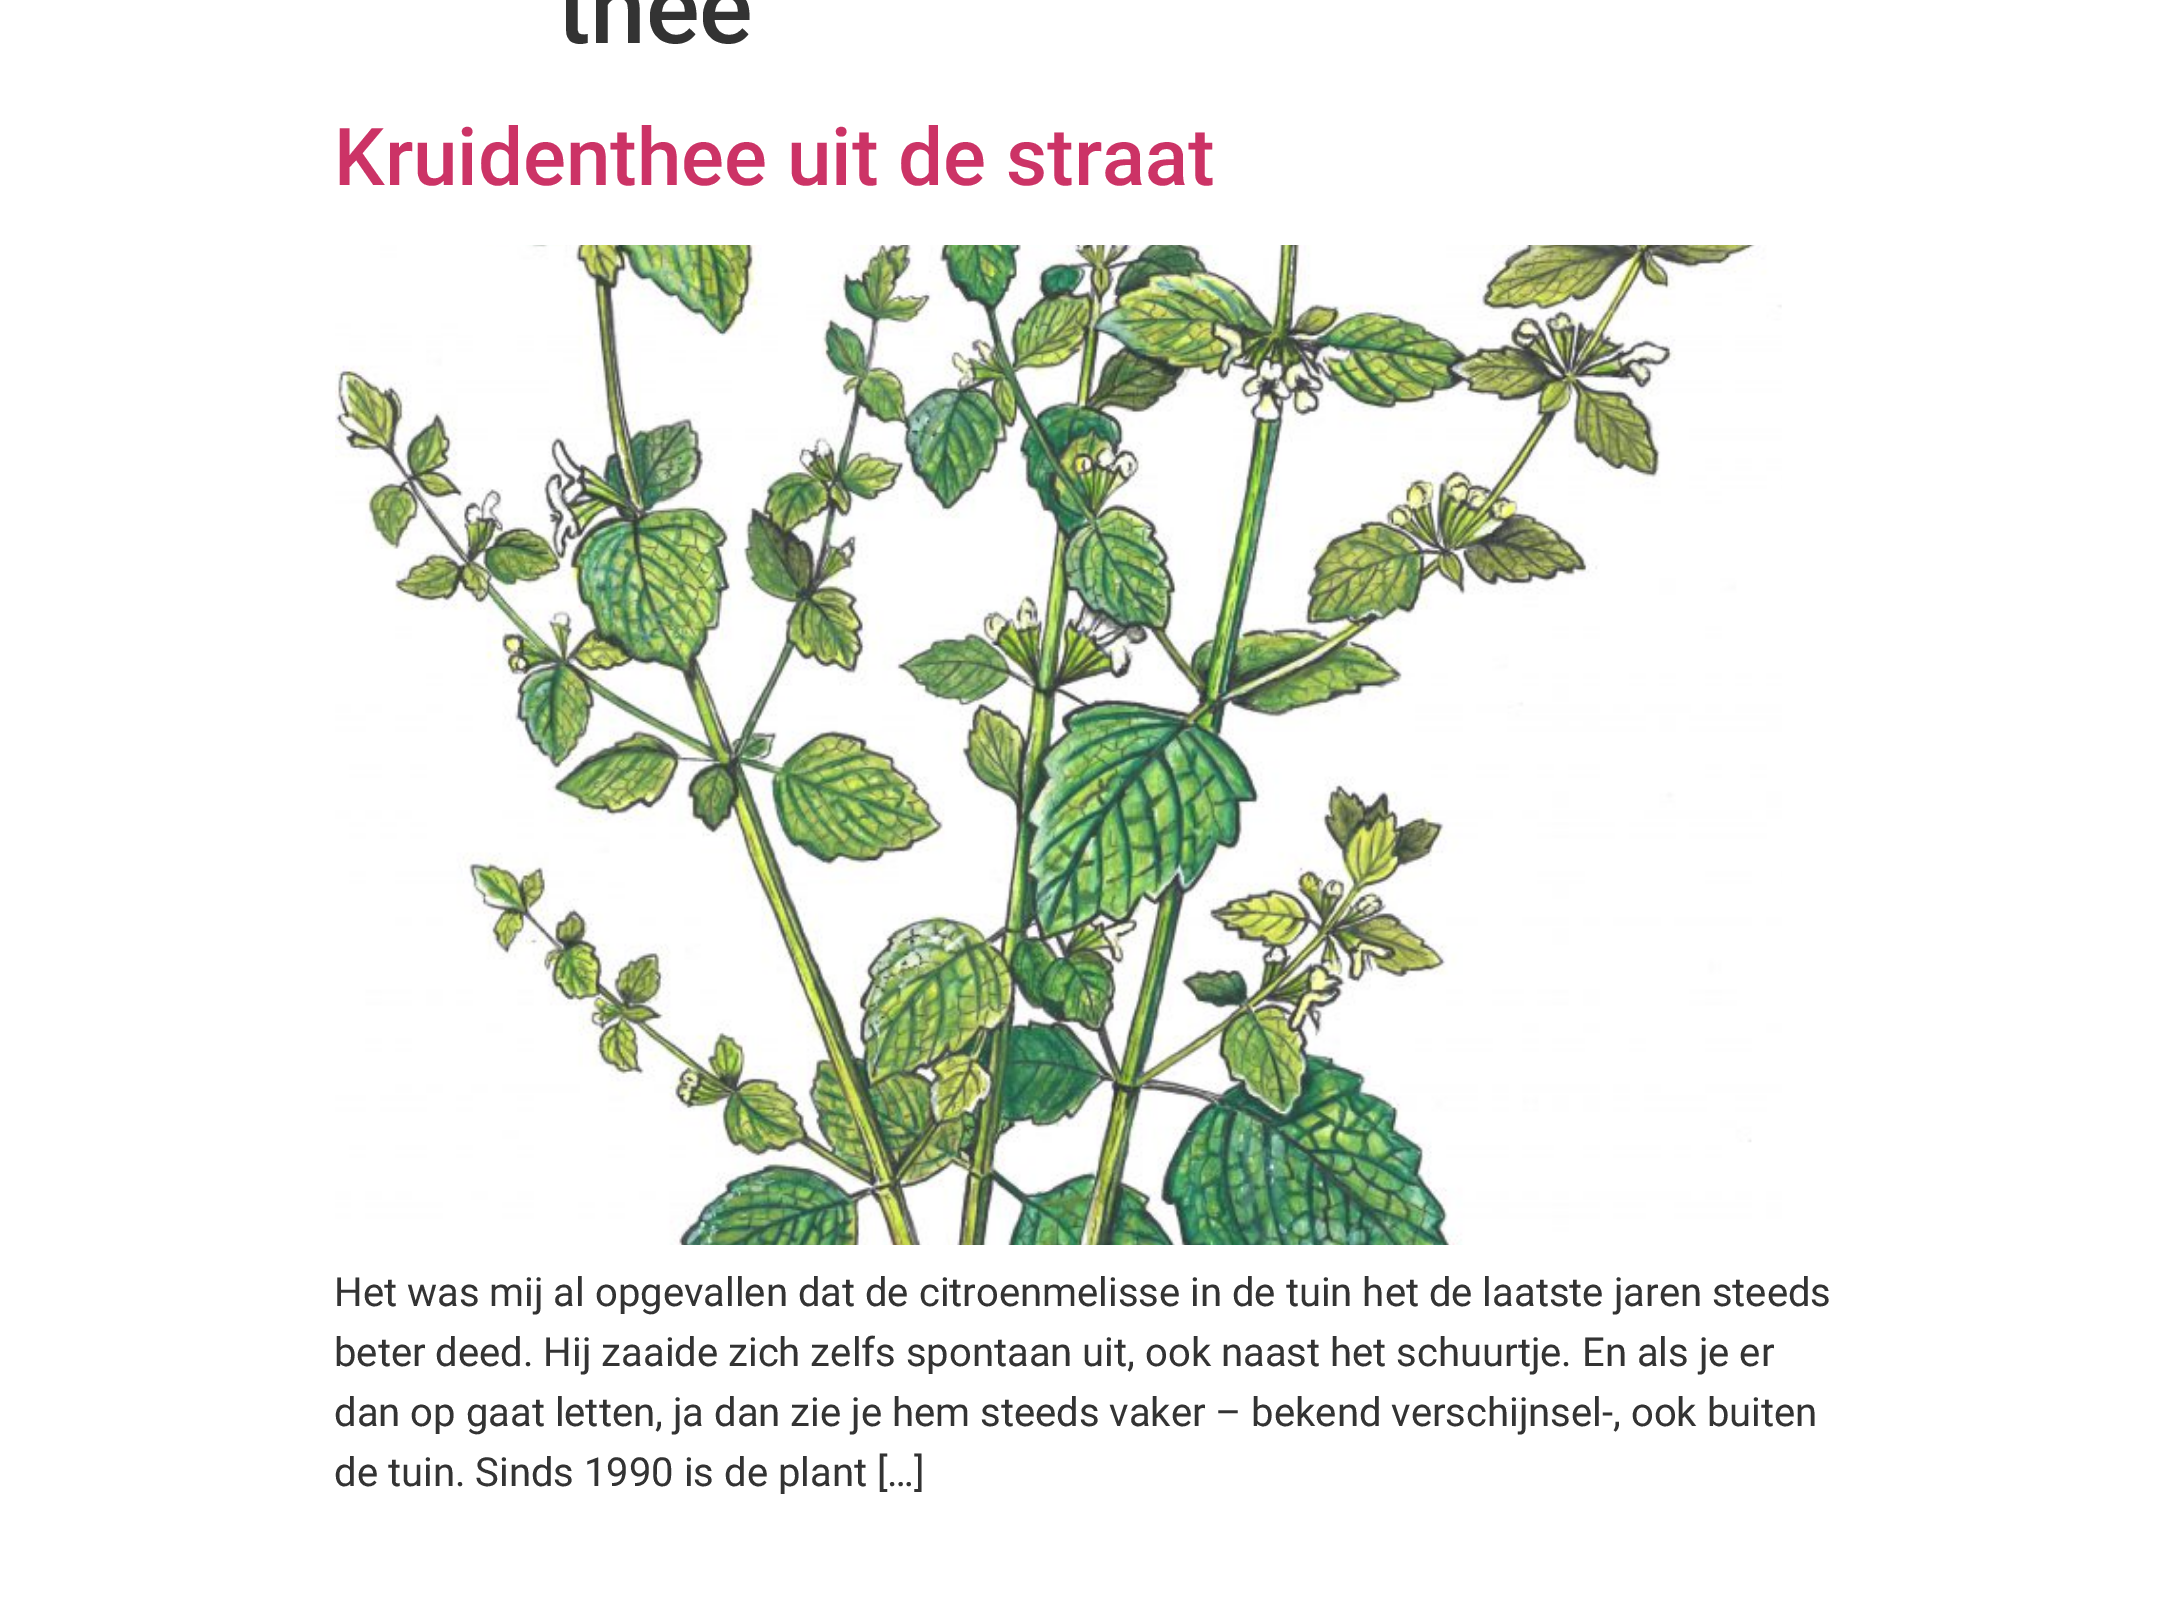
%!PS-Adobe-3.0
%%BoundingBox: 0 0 2166 1602
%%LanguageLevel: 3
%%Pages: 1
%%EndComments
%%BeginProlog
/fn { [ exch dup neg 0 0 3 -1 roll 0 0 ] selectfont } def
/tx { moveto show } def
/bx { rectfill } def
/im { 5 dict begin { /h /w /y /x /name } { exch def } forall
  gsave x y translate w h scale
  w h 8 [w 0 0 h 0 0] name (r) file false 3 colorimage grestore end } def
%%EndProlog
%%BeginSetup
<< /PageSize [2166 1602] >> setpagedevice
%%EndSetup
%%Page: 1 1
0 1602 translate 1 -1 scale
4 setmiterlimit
1 setgray
0 0 2166 1602 bx
/Roboto-Medium 100 fn
0.2 setgray
(thee) 557 43 tx
/Roboto-Medium 80 fn
0.8 0.2 0.4 setrgbcolor
(Kruidenthee uit de straat) 334 185 tx
(image0.raw) 335 245 1447 1000 im
/Roboto-Regular 40 fn
0.2 setgray
(Het was mij al opgevallen dat de citroenmelisse in de tuin het de laatste jaren steeds) 334 1306 tx
(beter deed. Hij zaaide zich zelfs spontaan uit, ook naast het schuurtje. En als je er) 334 1366 tx
(dan op gaat letten, ja dan zie je hem steeds vaker – bekend verschijnsel-, ook buiten) 334 1426 tx
(de tuin. Sinds 1990 is de plant […]) 334 1486 tx
showpage
%%EOF
